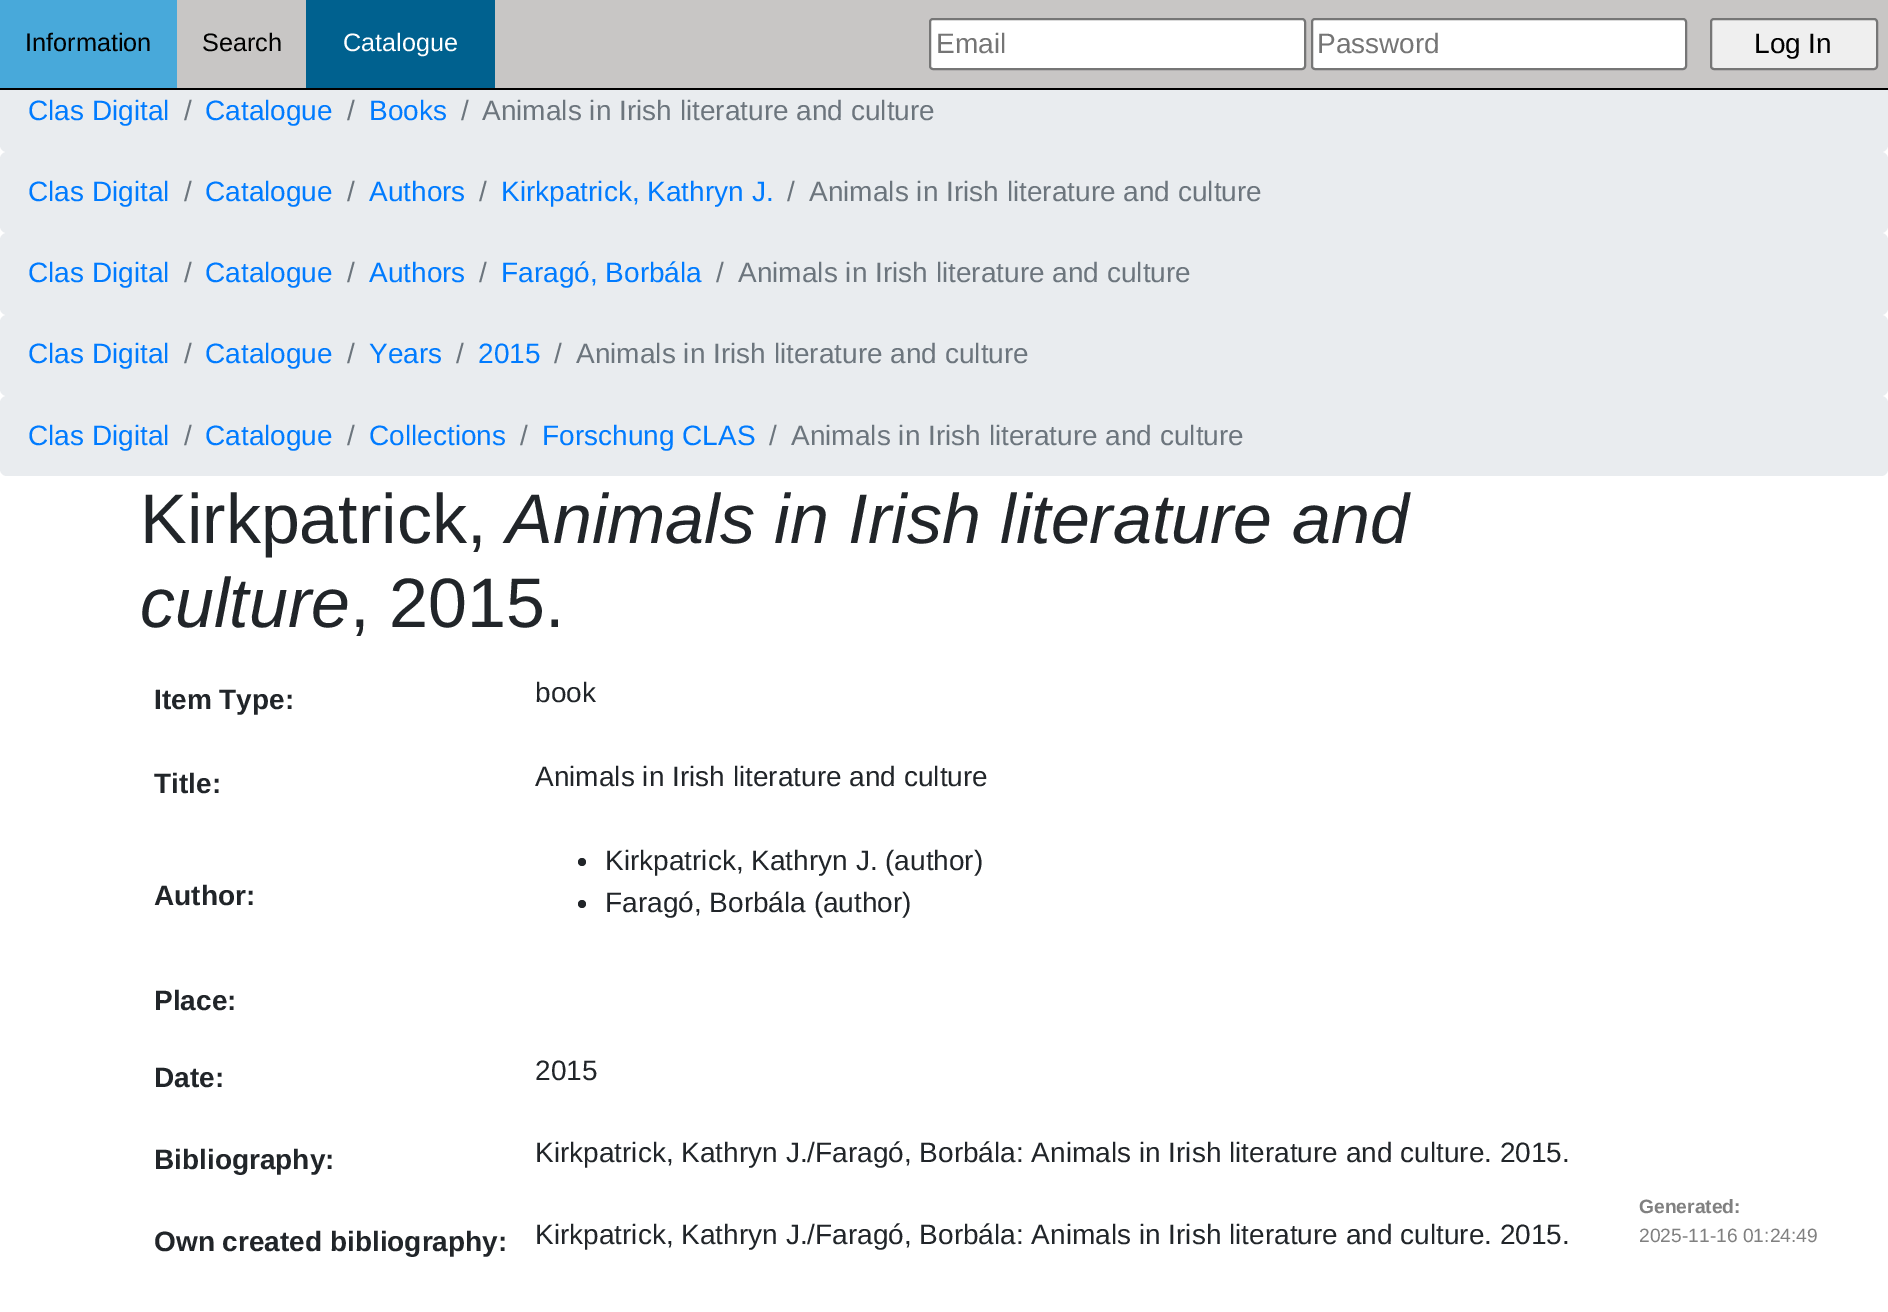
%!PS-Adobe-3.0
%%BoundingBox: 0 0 1888 1312
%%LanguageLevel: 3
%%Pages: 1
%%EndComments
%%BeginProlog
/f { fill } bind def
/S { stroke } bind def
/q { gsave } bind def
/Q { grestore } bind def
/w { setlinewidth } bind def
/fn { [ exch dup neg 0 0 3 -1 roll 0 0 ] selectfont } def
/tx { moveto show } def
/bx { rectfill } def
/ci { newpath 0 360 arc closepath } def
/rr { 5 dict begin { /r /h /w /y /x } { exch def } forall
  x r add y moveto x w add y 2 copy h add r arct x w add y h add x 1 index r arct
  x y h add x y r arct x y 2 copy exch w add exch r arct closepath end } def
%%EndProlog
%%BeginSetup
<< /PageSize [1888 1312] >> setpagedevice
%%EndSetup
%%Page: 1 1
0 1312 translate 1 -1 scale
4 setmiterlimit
1 setgray
0 0 1888 1312 bx
0.914 0.925 0.937 setrgbcolor
0 70 1888 82 7 rr f
0.784 0.776 0.773 setrgbcolor
177 0 1711 88 bx
0 setgray
0 88 1888 2 bx
0.282 0.663 0.855 setrgbcolor
0 0 177 88 bx
/LiberationSans-Regular 25.25 fn
0 setgray
(Information) 25 51 tx
(Search) 202 51 tx
0 0.38 0.561 setrgbcolor
306 0 189 88 bx
1 setgray
(Catalogue) 343 51 tx
930 19 375 50 3 rr q f Q
0.463 setgray
2 w
S
/LiberationSans-Regular 28 fn
0.459 setgray
(Email) 936 53 tx
1 setgray
1312 19 374 50 3 rr q f Q
0.463 setgray
S
0.459 setgray
(Password) 1317 53 tx
0.937 setgray
1711 19 166 50 3 rr q f Q
0.463 setgray
S
0 setgray
(Log In) 1754 53 tx
0 0.482 1 setrgbcolor
(Clas Digital) 28 120 tx
0.424 0.459 0.49 setrgbcolor
(/) 184 120 tx
0 0.482 1 setrgbcolor
(Catalogue) 205 120 tx
0.424 0.459 0.49 setrgbcolor
(/) 347 120 tx
0 0.482 1 setrgbcolor
(Books) 369 120 tx
0.424 0.459 0.49 setrgbcolor
(/) 461 120 tx
(Animals in Irish literature and culture) 482 120 tx
0.914 0.925 0.937 setrgbcolor
0 152 1888 81 7 rr f
0 0.482 1 setrgbcolor
(Clas Digital) 28 201 tx
0.424 0.459 0.49 setrgbcolor
(/) 184 201 tx
0 0.482 1 setrgbcolor
(Catalogue) 205 201 tx
0.424 0.459 0.49 setrgbcolor
(/) 347 201 tx
0 0.482 1 setrgbcolor
(Authors) 369 201 tx
0.424 0.459 0.49 setrgbcolor
(/) 479 201 tx
0 0.482 1 setrgbcolor
(Kirkpatrick, Kathryn J.) 501 201 tx
0.424 0.459 0.49 setrgbcolor
(/) 787 201 tx
(Animals in Irish literature and culture) 809 201 tx
0.914 0.925 0.937 setrgbcolor
0 233 1888 82 7 rr f
0 0.482 1 setrgbcolor
(Clas Digital) 28 282 tx
0.424 0.459 0.49 setrgbcolor
(/) 184 282 tx
0 0.482 1 setrgbcolor
(Catalogue) 205 282 tx
0.424 0.459 0.49 setrgbcolor
(/) 347 282 tx
0 0.482 1 setrgbcolor
(Authors) 369 282 tx
0.424 0.459 0.49 setrgbcolor
(/) 479 282 tx
0 0.482 1 setrgbcolor
(Faragó, Borbála) 501 282 tx
0.424 0.459 0.49 setrgbcolor
(/) 716 282 tx
(Animals in Irish literature and culture) 738 282 tx
0.914 0.925 0.937 setrgbcolor
0 315 1888 81 7 rr f
0 0.482 1 setrgbcolor
(Clas Digital) 28 363 tx
0.424 0.459 0.49 setrgbcolor
(/) 184 363 tx
0 0.482 1 setrgbcolor
(Catalogue) 205 363 tx
0.424 0.459 0.49 setrgbcolor
(/) 347 363 tx
0 0.482 1 setrgbcolor
(Years) 369 363 tx
0.424 0.459 0.49 setrgbcolor
(/) 456 363 tx
0 0.482 1 setrgbcolor
(2015) 478 363 tx
0.424 0.459 0.49 setrgbcolor
(/) 554 363 tx
(Animals in Irish literature and culture) 576 363 tx
0.914 0.925 0.937 setrgbcolor
0 396 1888 80 7 rr f
0 0.482 1 setrgbcolor
(Clas Digital) 28 445 tx
0.424 0.459 0.49 setrgbcolor
(/) 184 445 tx
0 0.482 1 setrgbcolor
(Catalogue) 205 445 tx
0.424 0.459 0.49 setrgbcolor
(/) 347 445 tx
0 0.482 1 setrgbcolor
(Collections) 369 445 tx
0.424 0.459 0.49 setrgbcolor
(/) 520 445 tx
0 0.482 1 setrgbcolor
(Forschung CLAS) 542 445 tx
0.424 0.459 0.49 setrgbcolor
(/) 769 445 tx
(Animals in Irish literature and culture) 791 445 tx
/LiberationSans-Regular 70 fn
0.129 0.145 0.161 setrgbcolor
(Kirkpatrick,) 140 543 tx
/LiberationSans-Italic 70 fn
(Animals in Irish literature and) 506 543 tx
(culture) 140 627 tx
/LiberationSans-Regular 70 fn
(, 2015.) 350 627 tx
/LiberationSans-Bold 28 fn
(Item Type:) 154 709 tx
/LiberationSans-Regular 28 fn
(book) 535 702 tx
/LiberationSans-Bold 28 fn
(Title:) 154 793 tx
/LiberationSans-Regular 28 fn
(Animals in Irish literature and culture) 535 786 tx
/LiberationSans-Bold 28 fn
(Author:) 154 905 tx
582 862 4 ci f
/LiberationSans-Regular 28 fn
(Kirkpatrick, Kathryn J. \(author\)) 605 870 tx
582 904 4 ci f
(Faragó, Borbála \(author\)) 605 912 tx
/LiberationSans-Bold 28 fn
(Place:) 154 1010 tx
(Date:) 154 1087 tx
/LiberationSans-Regular 28 fn
(2015) 535 1080 tx
/LiberationSans-Bold 28 fn
(Bibliography:) 154 1169 tx
/LiberationSans-Regular 28 fn
(Kirkpatrick, Kathryn J./Faragó, Borbála: Animals in Irish literature and culture. 2015.) 535 1162 tx
/LiberationSans-Bold 28 fn
(Own created bibliography:) 154 1251 tx
/LiberationSans-Regular 28 fn
(Kirkpatrick, Kathryn J./Faragó, Borbála: Animals in Irish literature and culture. 2015.) 535 1244 tx
/LiberationSans-Bold 19.25 fn
0.502 setgray
(Generated:) 1639 1213 tx
/LiberationSans-Regular 19.25 fn
(2025-11-16 01:24:49) 1639 1242 tx
showpage
%%EOF
